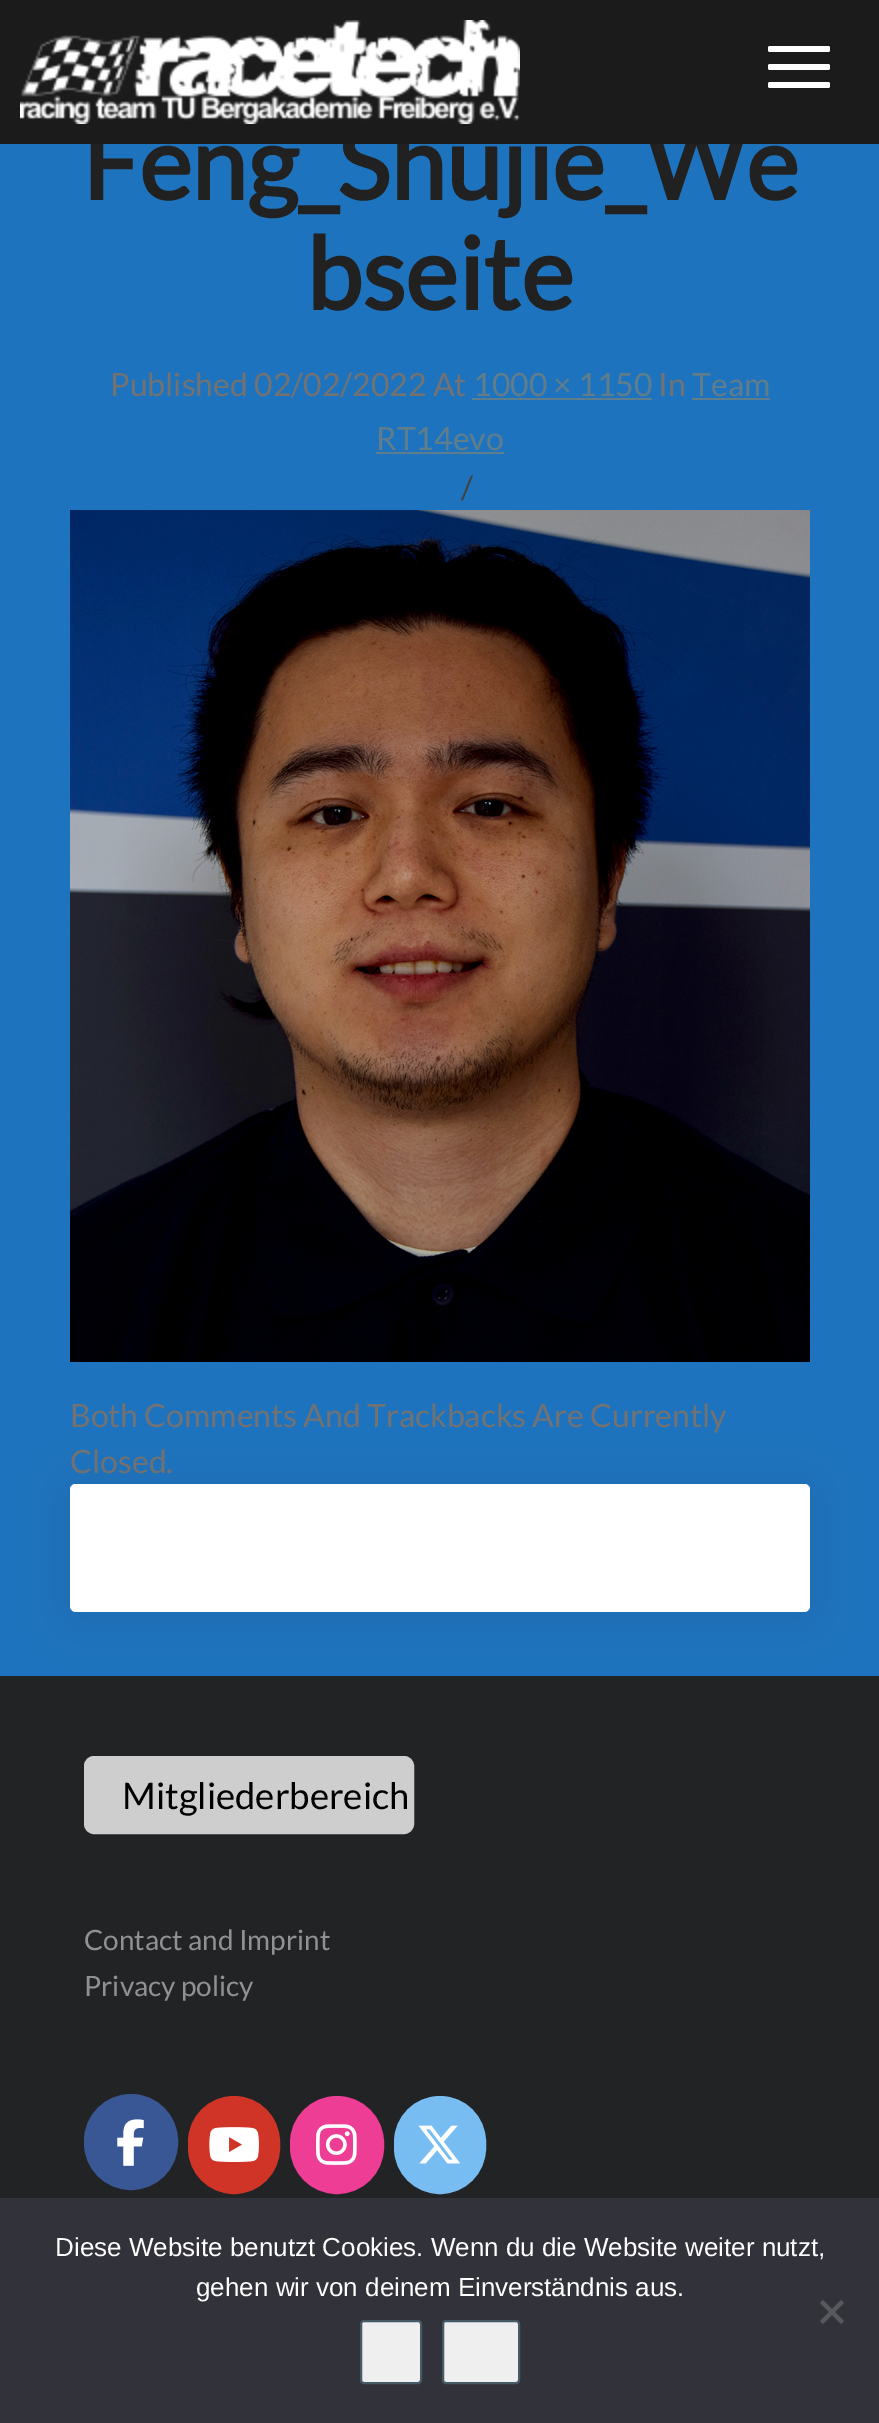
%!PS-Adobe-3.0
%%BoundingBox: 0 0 879 2423
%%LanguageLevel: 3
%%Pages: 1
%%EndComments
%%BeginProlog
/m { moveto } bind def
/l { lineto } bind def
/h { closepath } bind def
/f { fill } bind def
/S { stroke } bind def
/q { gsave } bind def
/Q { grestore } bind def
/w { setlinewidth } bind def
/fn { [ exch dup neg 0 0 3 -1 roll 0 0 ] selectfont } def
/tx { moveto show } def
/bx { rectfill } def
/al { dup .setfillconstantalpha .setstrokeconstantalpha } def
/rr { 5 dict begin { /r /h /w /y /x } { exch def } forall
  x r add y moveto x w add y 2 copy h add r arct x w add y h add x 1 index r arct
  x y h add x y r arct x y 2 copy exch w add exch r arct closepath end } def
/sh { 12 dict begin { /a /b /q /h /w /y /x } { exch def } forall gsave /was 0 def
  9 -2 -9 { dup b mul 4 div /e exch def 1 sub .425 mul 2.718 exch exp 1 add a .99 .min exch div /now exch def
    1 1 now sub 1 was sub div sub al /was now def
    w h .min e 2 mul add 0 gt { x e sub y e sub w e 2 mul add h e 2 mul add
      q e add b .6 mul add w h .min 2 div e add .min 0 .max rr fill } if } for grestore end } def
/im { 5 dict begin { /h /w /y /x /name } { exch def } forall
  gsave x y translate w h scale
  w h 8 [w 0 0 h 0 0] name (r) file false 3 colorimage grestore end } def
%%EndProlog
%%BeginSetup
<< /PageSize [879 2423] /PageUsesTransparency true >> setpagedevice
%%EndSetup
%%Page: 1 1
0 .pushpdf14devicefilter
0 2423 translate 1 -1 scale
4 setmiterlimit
0.118 0.451 0.745 setrgbcolor
0 0 879 2423 bx
/Lato-Bold 100 fn
0.129 setgray
(Feng_Shujie_We) 82 200 tx
0.106 setgray
0 0 879 144 bx
(image0.raw) 20 20 500 104 im
1 setgray
768 46 62 6 2 rr f
768 64 62 6 2 rr f
768 82 62 6 2 rr f
0.129 setgray
(bseite) 306 310 tx
/Lato-Regular 32 fn
0.447 setgray
(Published 02/02/2022 At) 110 396 tx
0.376 0.49 0.545 setrgbcolor
(1000 × 1150) 473 396 tx
472 398 180 2 bx
0.447 setgray
(In) 658 396 tx
0.376 0.49 0.545 setrgbcolor
(Team) 692 396 tx
692 398 78 2 bx
(RT14evo) 376 450 tx
376 452 128 2 bx
0.259 setgray
(/) 461 499 tx
(image1.raw) 70 510 740 852 im
0.447 setgray
(Both Comments And Trackbacks Are Currently) 70 1427 tx
(Closed.) 70 1473 tx
0.129 0.137 0.141 setrgbcolor
0 1676 879 522 bx
0 setgray
70 1488 740 128 6 25 0.08 sh
1 setgray
70 1484 740 128 6 rr f
70 1484 740 64 6 rr f
0.808 setgray
85 1757 328 76 9 rr q f Q
2 w
S
/Lato-Regular 36.5 fn
0 setgray
(Mitgliederbereich) 122 1809 tx
/Lato-Regular 28 fn
0.565 0.569 0.573 setrgbcolor
(Contact and Imprint) 84 1950 tx
(Privacy policy) 84 1996 tx
0.227 0.341 0.584 setrgbcolor
85 2095 92 94 46 rr q f Q
S
(image2.raw) 117 2119 27 47 im
0.812 0.204 0.153 setrgbcolor
189 2097 90 96 45 rr q f Q
S
(image3.raw) 209 2127 50 35 im
0.929 0.239 0.584 setrgbcolor
291 2097 92 96 46 rr q f Q
S
(image4.raw) 316 2124 41 41 im
0.471 0.741 0.945 setrgbcolor
395 2097 90 96 45 rr q f Q
S
(image5.raw) 418 2125 43 39 im
0.196 0.196 0.227 setrgbcolor
0 2198 879 225 bx
/LiberationSans-Regular 26 fn
1 setgray
(Diese Website benutzt Cookies. Wenn du die Website weiter nutzt,) 55 2256 tx
(gehen wir von deinem Einverständnis aus.) 196 2296 tx
0.349 0.349 0.365 setrgbcolor
841 2300 m 844 2303 l 823 2324 l 820 2321 l h f
820 2303 m 823 2300 l 844 2321 l 841 2324 l h f
0.937 setgray
361 2321 60 62 3 rr q f Q
0.271 0.353 0.392 setrgbcolor
S
0.937 setgray
443 2321 76 62 3 rr q f Q
0.271 0.353 0.392 setrgbcolor
S
.poppdf14devicefilter showpage
%%EOF
